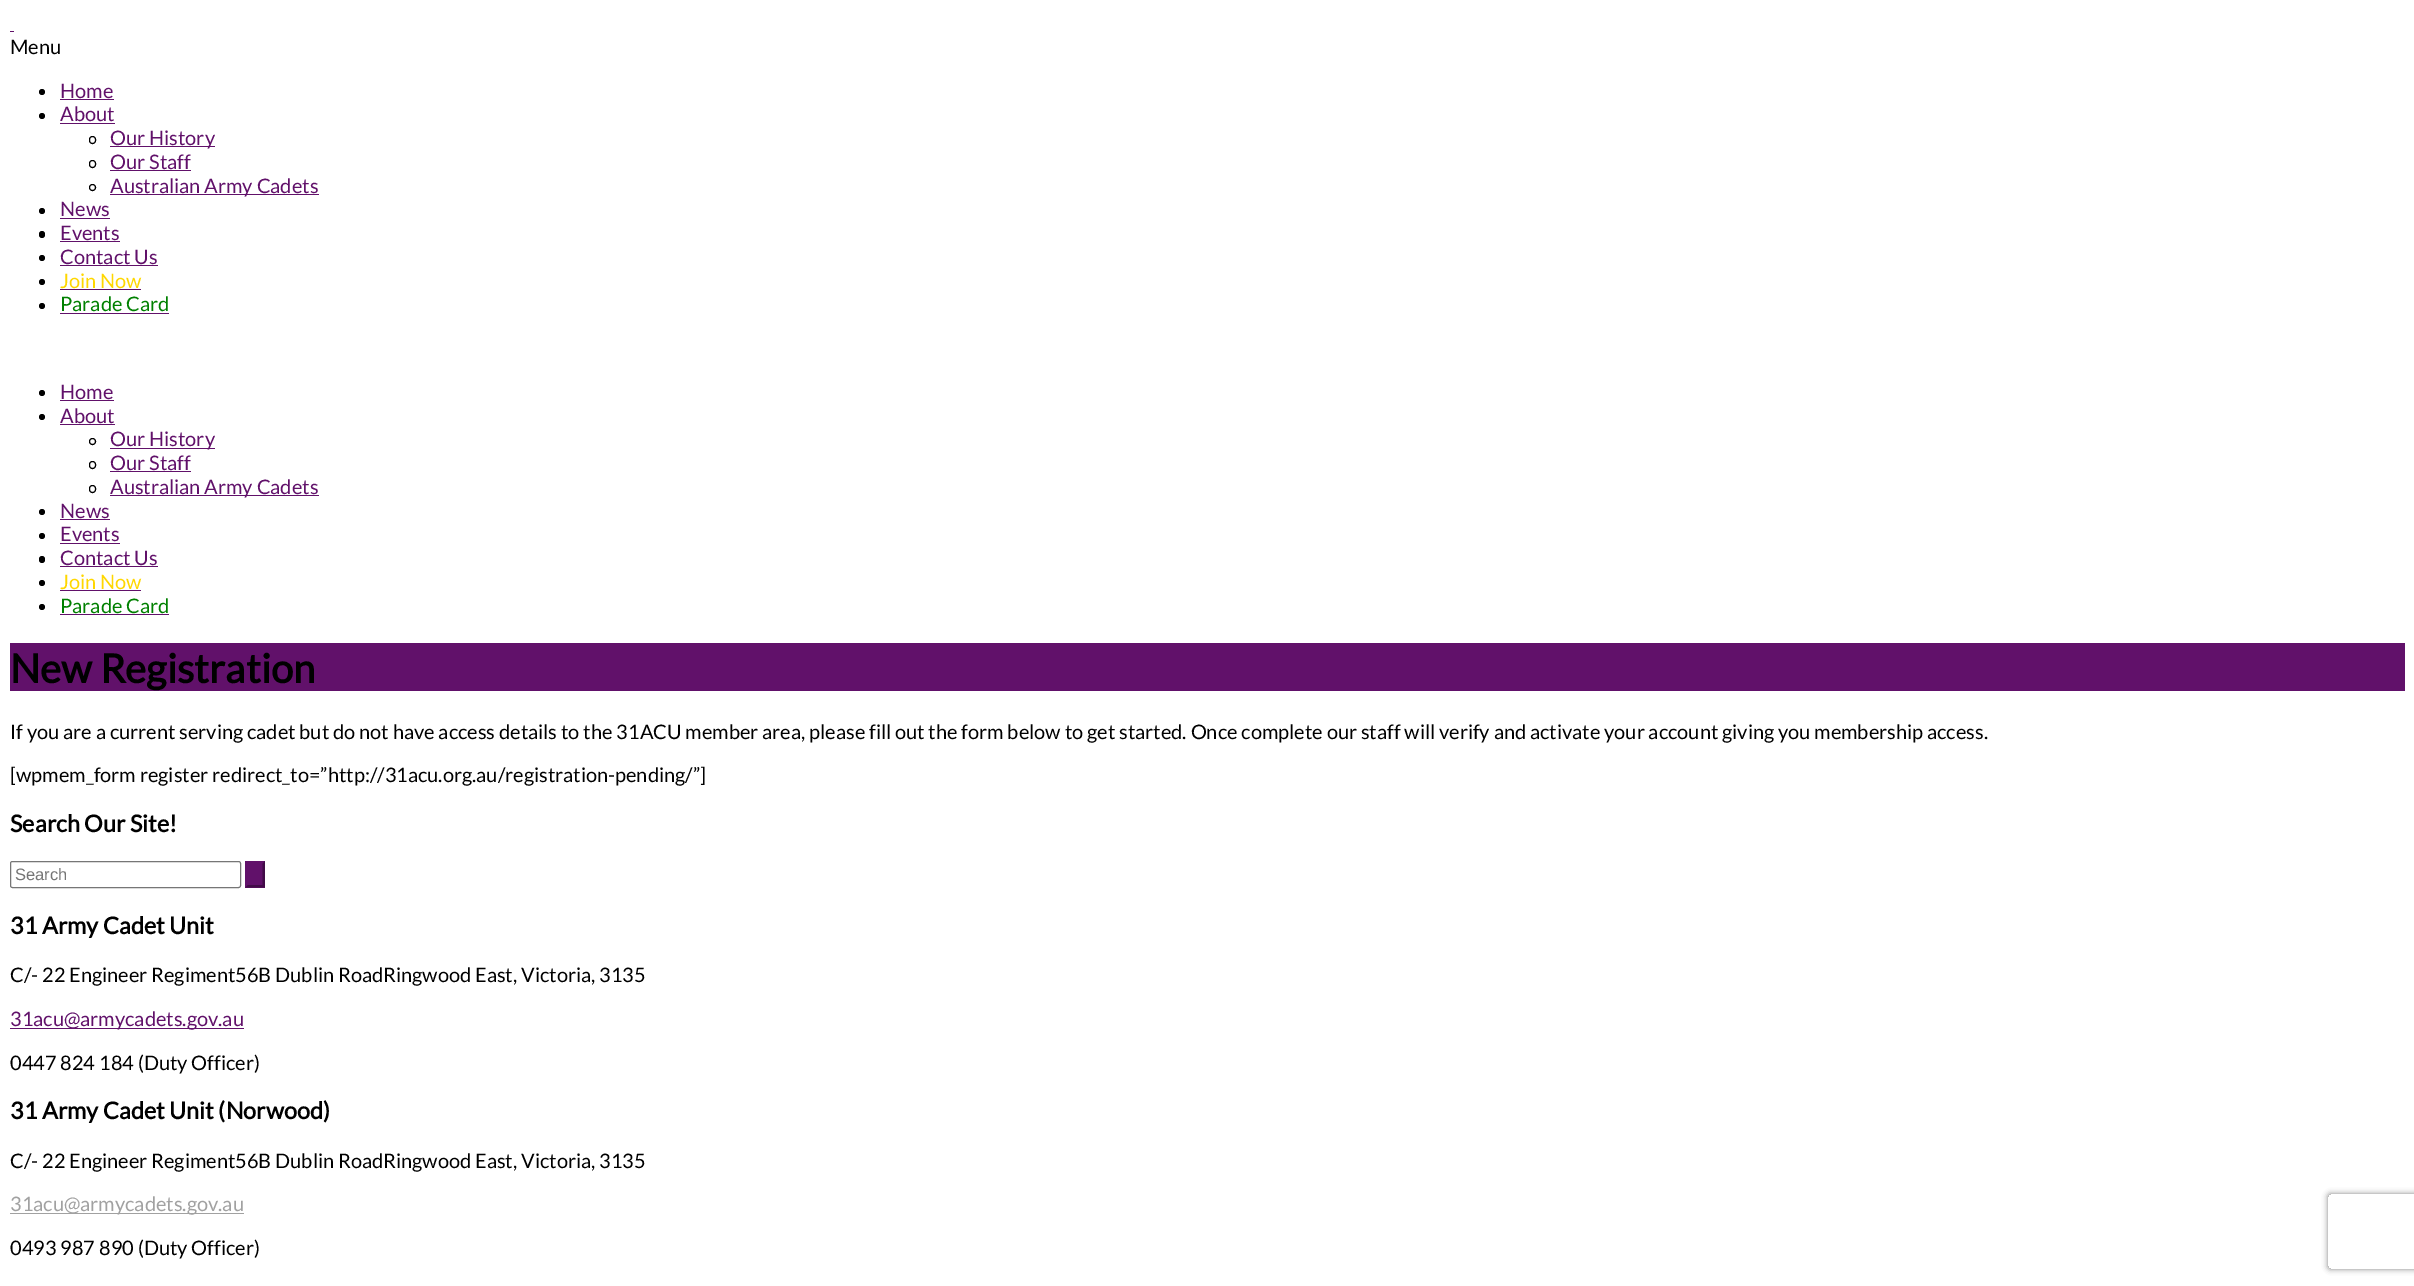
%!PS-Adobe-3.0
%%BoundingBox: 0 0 2414 1286
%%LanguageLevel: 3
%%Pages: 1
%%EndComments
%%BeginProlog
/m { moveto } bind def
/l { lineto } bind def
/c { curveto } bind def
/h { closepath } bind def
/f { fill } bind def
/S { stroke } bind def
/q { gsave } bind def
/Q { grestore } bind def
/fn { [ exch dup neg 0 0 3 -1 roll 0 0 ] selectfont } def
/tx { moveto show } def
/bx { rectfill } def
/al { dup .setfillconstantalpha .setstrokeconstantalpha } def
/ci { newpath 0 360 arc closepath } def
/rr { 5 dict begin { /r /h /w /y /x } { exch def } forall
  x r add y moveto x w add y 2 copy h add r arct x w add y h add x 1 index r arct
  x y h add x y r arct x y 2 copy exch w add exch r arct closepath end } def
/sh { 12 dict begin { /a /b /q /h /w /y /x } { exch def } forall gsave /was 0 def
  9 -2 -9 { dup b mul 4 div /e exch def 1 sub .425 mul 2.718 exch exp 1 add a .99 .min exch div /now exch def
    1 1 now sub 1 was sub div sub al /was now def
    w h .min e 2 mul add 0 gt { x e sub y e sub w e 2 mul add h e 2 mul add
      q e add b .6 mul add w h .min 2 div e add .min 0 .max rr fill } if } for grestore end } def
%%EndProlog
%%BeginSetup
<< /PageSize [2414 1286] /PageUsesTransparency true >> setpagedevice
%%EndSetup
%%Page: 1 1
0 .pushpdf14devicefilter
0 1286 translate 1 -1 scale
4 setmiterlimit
1 setgray
0 0 2414 1286 bx
0.38 0.067 0.416 setrgbcolor
10 31 4 1 bx
/Lato-Regular 20 fn
0 setgray
(Menu) 10 54 tx
42 92 3 ci f
0.38 0.067 0.416 setrgbcolor
(Home) 60 98 tx
60 99 54 1 bx
0 setgray
42 116 3 ci f
0.38 0.067 0.416 setrgbcolor
(About) 60 121 tx
60 123 55 1 bx
0 setgray
89.5 136.5 6 7 3 rr S
0.38 0.067 0.416 setrgbcolor
110 146 105 1 bx
(Our History) 110 145 tx
0 setgray
89.5 160.5 6 7 3 rr S
0.38 0.067 0.416 setrgbcolor
(Our Staff) 110 169 tx
110 170 81 1 bx
0 setgray
92.5 187.5 3 ci S
0.38 0.067 0.416 setrgbcolor
110 194 209 1 bx
(Australian Army Cadets) 110 193 tx
0 setgray
42 211 3 ci f
0.38 0.067 0.416 setrgbcolor
(News) 60 216 tx
60 218 50 1 bx
0 setgray
39 231 6 7 3 rr f
0.38 0.067 0.416 setrgbcolor
(Events) 60 240 tx
60 241 60 1 bx
0 setgray
42 258 3 ci f
0.38 0.067 0.416 setrgbcolor
(Contact Us) 60 264 tx
60 265 98 1 bx
0 setgray
42 282 3 ci f
1 0.843 0 setrgbcolor
(Join Now) 60 288 tx
0.38 0.067 0.416 setrgbcolor
60 289 81 1 bx
0 setgray
42 306 3 ci f
0 0.502 0 setrgbcolor
(Parade Card) 60 311 tx
0.38 0.067 0.416 setrgbcolor
60 313 109 1 bx
0 setgray
42 393 3 ci f
0.38 0.067 0.416 setrgbcolor
(Home) 60 399 tx
60 400 54 1 bx
0 setgray
42 417 3 ci f
0.38 0.067 0.416 setrgbcolor
(About) 60 423 tx
60 424 55 1 bx
0 setgray
92.5 441.5 3 ci S
0.38 0.067 0.416 setrgbcolor
110 448 105 1 bx
(Our History) 110 446 tx
0 setgray
89.5 461.5 6 7 3 rr S
0.38 0.067 0.416 setrgbcolor
(Our Staff) 110 470 tx
110 471 81 1 bx
0 setgray
89.5 485.5 6 7 3 rr S
0.38 0.067 0.416 setrgbcolor
110 495 209 1 bx
(Australian Army Cadets) 110 494 tx
0 setgray
42 512 3 ci f
0.38 0.067 0.416 setrgbcolor
(News) 60 518 tx
60 519 50 1 bx
0 setgray
42 536 3 ci f
0.38 0.067 0.416 setrgbcolor
(Events) 60 541 tx
60 543 60 1 bx
0 setgray
39 556 6 7 3 rr f
0.38 0.067 0.416 setrgbcolor
(Contact Us) 60 565 tx
60 566 98 1 bx
0 setgray
42 583 3 ci f
1 0.843 0 setrgbcolor
(Join Now) 60 589 tx
0.38 0.067 0.416 setrgbcolor
60 590 81 1 bx
0 setgray
42 607 3 ci f
0 0.502 0 setrgbcolor
(Parade Card) 60 613 tx
0.38 0.067 0.416 setrgbcolor
60 614 109 1 bx
10 643 2395 48 bx
/Lato-Bold 40 fn
0 setgray
(New Registration) 10 683 tx
/Lato-Regular 20 fn
(If you are a current serving cadet but do not have access details to the 31ACU member area, please fill out the form below to get started. Once complete our staff will verify and activate your account giving you membership access.) 10 739 tx
([wpmem_form register redirect_to=”http://31acu.org.au/registration-pending/”]) 10 782 tx
/Lato-Bold 23.4 fn
(Search Our Site!) 10 832 tx
0.463 setgray
10.5 861.5 230 26 2 rr S
/LiberationSans-Regular 16.5 fn
0.459 setgray
(Search) 15 880 tx
0.38 0.067 0.416 setrgbcolor
245 861 20 27 bx
0.255 0.043 0.278 setrgbcolor
265 861 m 265 887.5 l 262.5 885 l 262.5 864 l h f
265 887.5 m 245 887.5 l 247.5 885 l 262.5 885 l h f
0.38 0.067 0.416 setrgbcolor
245 887.5 m 245 861 l 247.5 864 l 247.5 885 l h f
/Lato-Bold 23.4 fn
0 setgray
(31 Army Cadet Unit) 10 934 tx
/Lato-Regular 20 fn
(C/- 22 Engineer Regiment56B Dublin RoadRingwood East, Victoria, 3135) 10 982 tx
0.38 0.067 0.416 setrgbcolor
10 1028 234 1 bx
(31acu@armycadets.gov.au) 10 1026 tx
0 setgray
(0447 824 184 \(Duty Officer\)) 10 1070 tx
/Lato-Bold 23.4 fn
(31 Army Cadet Unit \(Norwood\)) 10 1119 tx
/Lato-Regular 20 fn
(C/- 22 Engineer Regiment56B Dublin RoadRingwood East, Victoria, 3135) 10 1168 tx
0.631 setgray
10 1213 234 1 bx
(31acu@armycadets.gov.au) 10 1211 tx
0 setgray
(0493 987 890 \(Duty Officer\)) 10 1255 tx
q
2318 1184 m 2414 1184 l 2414 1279 l 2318 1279 l h 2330.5 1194 m 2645.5 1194 l 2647 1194 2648 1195 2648 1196.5 c 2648 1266.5 l 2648 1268 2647 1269 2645.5 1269 c 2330.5 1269 l 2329 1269 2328 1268 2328 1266.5 c 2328 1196.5 l 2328 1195 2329 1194 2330.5 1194 c h eoclip newpath
0.502 setgray
2328 1194 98 75 2.5 3 1 sh
Q
.poppdf14devicefilter showpage
%%EOF
